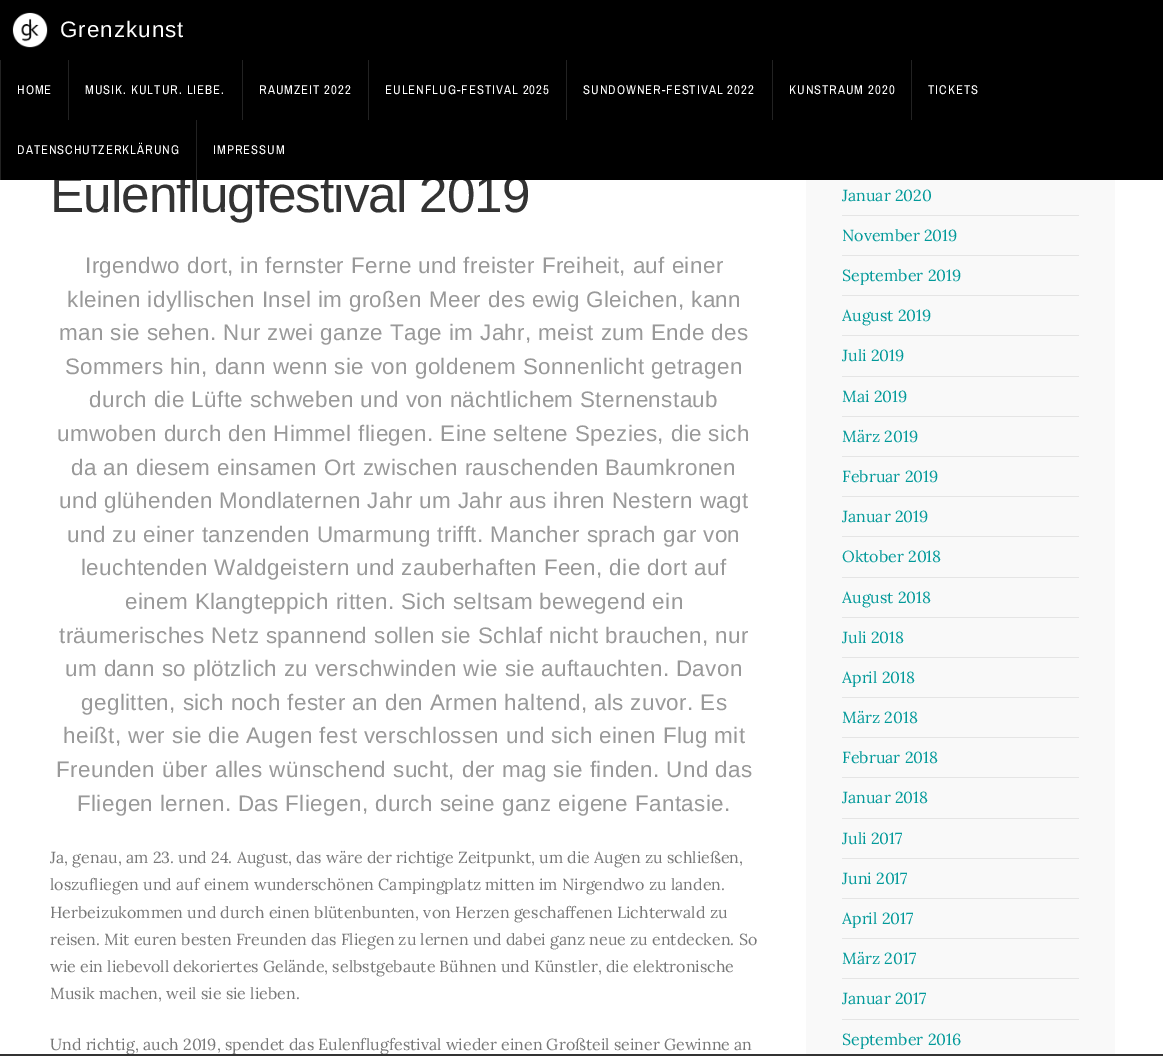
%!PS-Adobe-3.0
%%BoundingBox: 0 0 1163 1056
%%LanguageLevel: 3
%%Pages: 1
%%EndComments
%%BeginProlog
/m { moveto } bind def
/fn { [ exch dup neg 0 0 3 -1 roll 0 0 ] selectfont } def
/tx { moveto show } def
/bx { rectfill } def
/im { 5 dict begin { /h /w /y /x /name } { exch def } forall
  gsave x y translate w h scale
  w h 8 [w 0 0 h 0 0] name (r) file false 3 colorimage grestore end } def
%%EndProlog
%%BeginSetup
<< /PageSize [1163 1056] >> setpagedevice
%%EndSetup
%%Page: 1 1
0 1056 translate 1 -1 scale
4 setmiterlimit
1 setgray
0 0 1163 1056 bx
/Arimo-Regular 51.25 fn
0.2 setgray
50 212 m -1 0 (Eulenflugfestival 2019) ashow
0 setgray
0 0 1163 180 bx
(image0.raw) 12 12 36 36 im
/LiberationSans-Regular 22.4 fn
1 setgray
60 37 m 1 0 (Grenzkunst) ashow
0.133 setgray
0 60 1 120 bx
/ArchivoNarrow-Regular 12.75 fn
1 setgray
17 94 m 1 0 (HOME) ashow
0.133 setgray
68 60 1 60 bx
1 setgray
85 94 m 1 0 (MUSIK. KULTUR. LIEBE.) ashow
0.133 setgray
242 60 1 60 bx
1 setgray
259 94 m 1 0 (RAUMZEIT 2022) ashow
0.133 setgray
368 60 1 60 bx
1 setgray
385 94 m 1 0 (EULENFLUG-FESTIVAL 2025) ashow
0.133 setgray
566 60 1 60 bx
1 setgray
583 94 m 1 0 (SUNDOWNER-FESTIVAL 2022) ashow
0.133 setgray
772 60 1 60 bx
1 setgray
789 94 m 1 0 (KUNSTRAUM 2020) ashow
0.133 setgray
911 60 1 60 bx
1 setgray
928 94 m 1 0 (TICKETS) ashow
17 154 m 1 0 (DATENSCHUTZERKLÄRUNG) ashow
0.133 setgray
196 120 1 60 bx
1 setgray
213 154 m 1 0 (IMPRESSUM) ashow
/Arimo-Regular 22.4 fn
0.6 setgray
85 273 m 0.4 0 (Irgendwo dort, in fernster Ferne und freister Freiheit, auf einer) ashow
67 307 m 0.4 0 (kleinen idyllischen Insel im großen Meer des ewig Gleichen, kann) ashow
59 340 m 0.4 0 (man sie sehen. Nur zwei ganze Tage im Jahr, meist zum Ende des) ashow
65 374 m 0.4 0 (Sommers hin, dann wenn sie von goldenem Sonnenlicht getragen) ashow
89 407 m 0.4 0 (durch die Lüfte schweben und von nächtlichem Sternenstaub) ashow
57 441 m 0.4 0 (umwoben durch den Himmel fliegen. Eine seltene Spezies, die sich) ashow
71 475 m 0.4 0 (da an diesem einsamen Ort zwischen rauschenden Baumkronen) ashow
59 508 m 0.4 0 (und glühenden Mondlaternen Jahr um Jahr aus ihren Nestern wagt) ashow
67 542 m 0.4 0 (und zu einer tanzenden Umarmung trifft. Mancher sprach gar von) ashow
81 575 m 0.4 0 (leuchtenden Waldgeistern und zauberhaften Feen, die dort auf) ashow
125 609 m 0.4 0 (einem Klangteppich ritten. Sich seltsam bewegend ein) ashow
59 643 m 0.4 0 (träumerisches Netz spannend sollen sie Schlaf nicht brauchen, nur) ashow
65 676 m 0.4 0 (um dann so plötzlich zu verschwinden wie sie auftauchten. Davon) ashow
81 710 m 0.4 0 (geglitten, sich noch fester an den Armen haltend, als zuvor. Es) ashow
63 743 m 0.4 0 (heißt, wer sie die Augen fest verschlossen und sich einen Flug mit) ashow
56 777 m 0.4 0 (Freunden über alles wünschend sucht, der mag sie finden. Und das) ashow
77 811 m 0.4 0 (Fliegen lernen. Das Fliegen, durch seine ganz eigene Fantasie.) ashow
/Lora-Regular 16 fn
0.467 setgray
(Ja, genau, am 23. und 24. August, das wäre der richtige Zeitpunkt, um die Augen zu schließen,) 50 863 tx
(loszufliegen und auf einem wunderschönen Campingplatz mitten im Nirgendwo zu landen.) 50 890 tx
(Herbeizukommen und durch einen blütenbunten, von Herzen geschaffenen Lichterwald zu) 50 918 tx
(reisen. Mit euren besten Freunden das Fliegen zu lernen und dabei ganz neue zu entdecken. So) 50 945 tx
(wie ein liebevoll dekoriertes Gelände, selbstgebaute Bühnen und Künstler, die elektronische) 50 972 tx
(Musik machen, weil sie sie lieben.) 50 999 tx
(Und richtig, auch 2019, spendet das Eulenflugfestival wieder einen Großteil seiner Gewinne an) 50 1050 tx
0.976 setgray
806 180 309 874 bx
0 0.6 0.6 setrgbcolor
(Januar 2020) 842 201 tx
0.898 setgray
842 215 237 1 bx
0 0.6 0.6 setrgbcolor
(November 2019) 842 241 tx
0.898 setgray
842 255 237 1 bx
0 0.6 0.6 setrgbcolor
(September 2019) 842 281 tx
0.898 setgray
842 295 237 1 bx
0 0.6 0.6 setrgbcolor
(August 2019) 842 321 tx
0.898 setgray
842 335 237 1 bx
0 0.6 0.6 setrgbcolor
(Juli 2019) 842 361 tx
0.898 setgray
842 376 237 1 bx
0 0.6 0.6 setrgbcolor
(Mai 2019) 842 402 tx
0.898 setgray
842 416 237 1 bx
0 0.6 0.6 setrgbcolor
(März 2019) 842 442 tx
0.898 setgray
842 456 237 1 bx
0 0.6 0.6 setrgbcolor
(Februar 2019) 842 482 tx
0.898 setgray
842 496 237 1 bx
0 0.6 0.6 setrgbcolor
(Januar 2019) 842 522 tx
0.898 setgray
842 536 237 1 bx
0 0.6 0.6 setrgbcolor
(Oktober 2018) 842 562 tx
0.898 setgray
842 577 237 1 bx
0 0.6 0.6 setrgbcolor
(August 2018) 842 603 tx
0.898 setgray
842 617 237 1 bx
0 0.6 0.6 setrgbcolor
(Juli 2018) 842 643 tx
0.898 setgray
842 657 237 1 bx
0 0.6 0.6 setrgbcolor
(April 2018) 842 683 tx
0.898 setgray
842 697 237 1 bx
0 0.6 0.6 setrgbcolor
(März 2018) 842 723 tx
0.898 setgray
842 737 237 1 bx
0 0.6 0.6 setrgbcolor
(Februar 2018) 842 763 tx
0.898 setgray
842 777 237 1 bx
0 0.6 0.6 setrgbcolor
(Januar 2018) 842 803 tx
0.898 setgray
842 818 237 1 bx
0 0.6 0.6 setrgbcolor
(Juli 2017) 842 844 tx
0.898 setgray
842 858 237 1 bx
0 0.6 0.6 setrgbcolor
(Juni 2017) 842 884 tx
0.898 setgray
842 898 237 1 bx
0 0.6 0.6 setrgbcolor
(April 2017) 842 924 tx
0.898 setgray
842 938 237 1 bx
0 0.6 0.6 setrgbcolor
(März 2017) 842 964 tx
0.898 setgray
842 978 237 1 bx
0 0.6 0.6 setrgbcolor
(Januar 2017) 842 1004 tx
0.898 setgray
842 1019 237 1 bx
0 0.6 0.6 setrgbcolor
(September 2016) 842 1045 tx
0.2 setgray
0 1054 1163 2 bx
showpage
%%EOF
